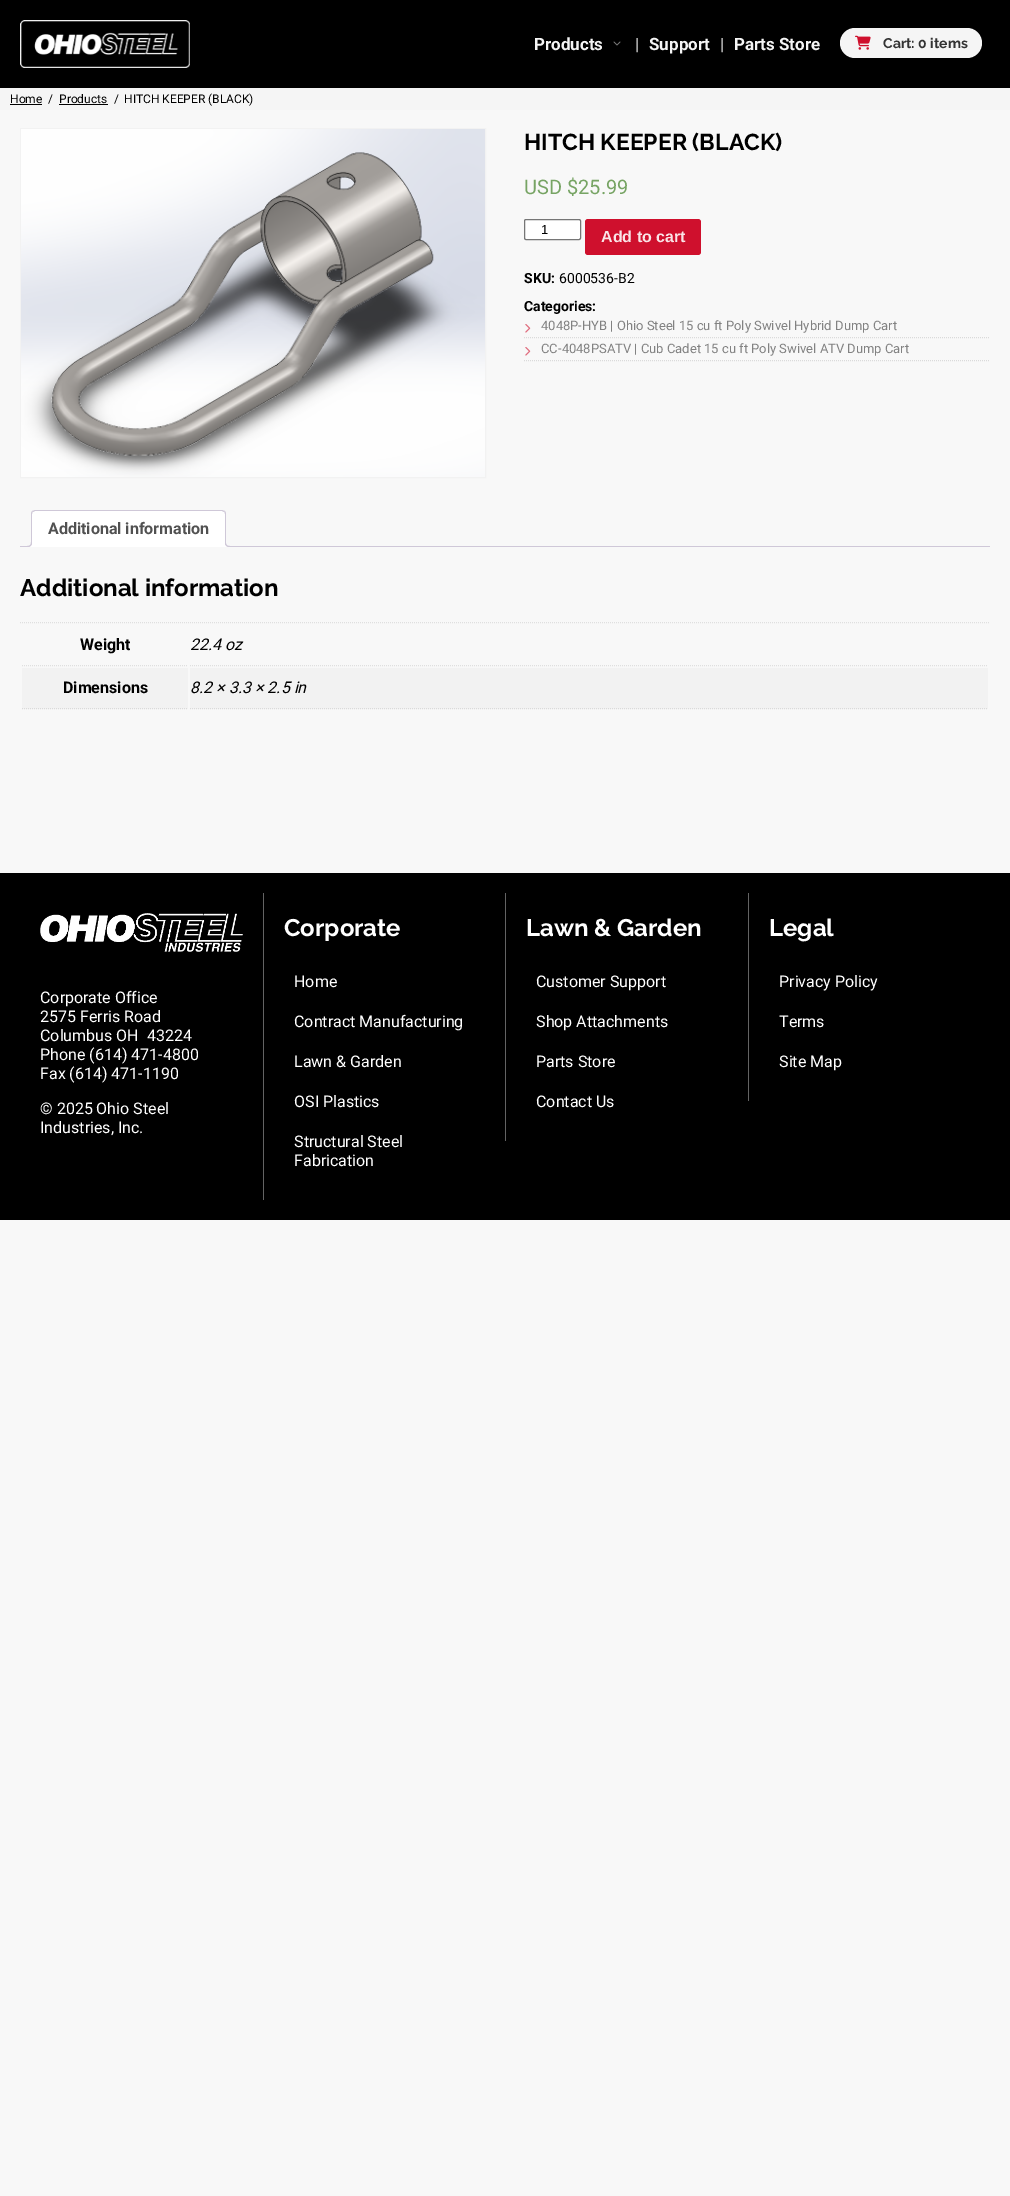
%!PS-Adobe-3.0
%%BoundingBox: 0 0 1010 2196
%%LanguageLevel: 3
%%Pages: 1
%%EndComments
%%BeginProlog
/m { moveto } bind def
/l { lineto } bind def
/c { curveto } bind def
/h { closepath } bind def
/f { fill } bind def
/S { stroke } bind def
/q { gsave } bind def
/Q { grestore } bind def
/fn { [ exch dup neg 0 0 3 -1 roll 0 0 ] selectfont } def
/tx { moveto show } def
/bx { rectfill } def
/rr { 5 dict begin { /r /h /w /y /x } { exch def } forall
  x r add y moveto x w add y 2 copy h add r arct x w add y h add x 1 index r arct
  x y h add x y r arct x y 2 copy exch w add exch r arct closepath end } def
/im { 5 dict begin { /h /w /y /x /name } { exch def } forall
  gsave x y translate w h scale
  w h 8 [w 0 0 h 0 0] name (r) file false 3 colorimage grestore end } def
%%EndProlog
%%BeginSetup
<< /PageSize [1010 2196] >> setpagedevice
%%EndSetup
%%Page: 1 1
0 2196 translate 1 -1 scale
4 setmiterlimit
0.973 setgray
0 0 1010 2196 bx
0 setgray
0 0 1010 88 bx
(image0.raw) 20 20 170 48 im
/Roboto-Bold 17 fn
0.961 setgray
(Products) 534 50 tx
(image1.raw) 613 41 8 5 im
/Roboto-Regular 17 fn
0.855 setgray
(|) 635 50 tx
/Roboto-Bold 17 fn
0.961 setgray
(Support) 649 50 tx
/Roboto-Regular 17 fn
0.855 setgray
(|) 720 50 tx
/Roboto-Bold 17 fn
0.961 setgray
(Parts Store) 734 50 tx
840 28 142 30 15 rr f
(image2.raw) 855 35 16 15 im
/Raleway-Bold 14 fn
0.2 setgray
(Cart: 0 items) 883 48 tx
0.961 setgray
0 88 1010 22 bx
/Roboto-Regular 12 fn
0 setgray
(Home) 10 103 tx
10 104 32 1 bx
(/) 48 103 tx
(Products) 59 103 tx
59 104 49 1 bx
(/) 114 103 tx
(HITCH KEEPER \(BLACK\)) 124 103 tx
0.949 setgray
20.5 128.5 465 349 rectstroke
(image3.raw) 21 129 464 348 im
/Raleway-Bold 23 fn
0 setgray
(HITCH KEEPER \(BLACK\)) 524 150 tx
/Roboto-Regular 20 fn
0.467 0.643 0.392 setrgbcolor
(USD $25.99) 524 194 tx
1 setgray
524.5 219.5 56 20 1.5 rr q f Q
0.463 setgray
S
/LiberationSans-Regular 13 fn
0 setgray
(1) 541 234 tx
0.812 0.063 0.176 setrgbcolor
585 219 116 36 3 rr f
/LiberationSans-Bold 16 fn
0.98 0.894 0.906 setrgbcolor
(Add to cart) 601 242 tx
/Roboto-Bold 14 fn
0 setgray
(SKU:) 524 283 tx
/Roboto-Regular 14 fn
(6000536-B2) 559 283 tx
/Roboto-Bold 14 fn
(Categories:) 524 311 tx
0.855 setgray
[1 1] 0 setdash
524 337.5 m 990 337.5 l S
(image4.raw) 525 324 6 9 im
/Roboto-Regular 13 fn
0.51 setgray
(4048P-HYB | Ohio Steel 15 cu ft Poly Swivel Hybrid Dump Cart) 541 330 tx
0.855 setgray
524 360.5 m 990 360.5 l S
(image4.raw) 525 347 6 9 im
0.51 setgray
(CC-4048PSATV | Cub Cadet 15 cu ft Poly Swivel ATV Dump Cart) 541 353 tx
0.812 0.784 0.847 setrgbcolor
20 546 970 1 bx
1 setgray
35 510 m 222 510 l 224 510 226 512 226 514 c 226 547 l 31 547 l 31 514 l 31 512 33 510 35 510 c h f
0.812 0.784 0.847 setrgbcolor
35 510 m 32 511 l 33 512 l 35 511 l 222 511 l 224 512 l 225 511 l 222 510 l h f
226 547 m 226 514 l 226 513 225.5 512 225 511 c 224 512 l 225 512 225 513 225 514 c 225 546 l h f
1 setgray
226 547 m 225 546 l 32 546 l 31 547 l h f
0.812 0.784 0.847 setrgbcolor
31 547 m 32 546 l 32 514 l 32 513 32 512 33 512 c 32 511 l 31.5 512 31 513 31 514 c h f
/Roboto-Bold 16 fn
0.318 setgray
(Additional information) 48 534 tx
q
20 510 970 37 rectclip
1 setgray
29 547 m 29 549 l 32.5 549 34 547.5 34 544 c 32 544 l 31.5 545.5 30.5 546.5 29 547 c h f
Q
0.812 0.784 0.847 setrgbcolor
27 542 m 32 542 l 32 545.5 30.5 547 27 547 c h 27 542 m 31 542 l 31 545 30 546 27 546 c h eofill
q
20 510 970 37 rectclip
1 setgray
223 544 m 223 547.5 224.5 549 228 549 c 228 547 l 226.5 546.5 225.5 545.5 225 544 c h f
Q
225 542 m 230 542 l 230 547 l 227.5 547 225 546 225 543 c h 226 542 m 230 542 l 230 546 l 228 546 226 545.5 226 543 c h eofill
/Raleway-Bold 24 fn
0 setgray
(Additional information) 20 596 tx
0.875 setgray
20 622.5 m 990 622.5 l S
22 665.5 m 188 665.5 l S
/Roboto-Bold 16 fn
0 setgray
(Weight) 80 650 tx
0.875 setgray
190 665.5 m 988 665.5 l S
/Roboto-Italic 16 fn
0 setgray
(22.4 oz) 190 650 tx
0.949 setgray
22 668 166 41 bx
0.855 setgray
22 708.5 m 188 708.5 l S
/Roboto-Bold 16 fn
0 setgray
(Dimensions) 63 693 tx
0.949 setgray
190 668 798 41 bx
0.855 setgray
190 708.5 m 988 708.5 l S
/Roboto-Italic 16 fn
0 setgray
(8.2 × 3.3 × 2.5 in) 190 693 tx
0 873 1010 347 bx
(image5.raw) 40 913 203 39 im
/Roboto-Regular 16 fn
1 setgray
(Corporate Office) 40 1003 tx
(2575 Ferris Road) 40 1022 tx
(Columbus OH  43224) 40 1041 tx
(Phone \(614\) 471-4800) 40 1060 tx
(Fax \(614\) 471-1190) 40 1079 tx
(© 2025 Ohio Steel) 40 1114 tx
(Industries, Inc.) 40 1133 tx
0.388 setgray
263 893 1 307 bx
/Raleway-Bold 24 fn
1 setgray
(Corporate) 284 936 tx
/Roboto-Regular 16 fn
(Home) 294 987 tx
(Contract Manufacturing) 294 1027 tx
(Lawn & Garden) 294 1067 tx
(OSI Plastics) 294 1107 tx
(Structural Steel) 294 1147 tx
(Fabrication) 294 1166 tx
0.388 setgray
505 893 1 248 bx
/Raleway-Bold 24 fn
1 setgray
(Lawn & Garden) 526 936 tx
/Roboto-Regular 16 fn
(Customer Support) 536 987 tx
(Shop Attachments) 536 1027 tx
(Parts Store) 536 1067 tx
(Contact Us) 536 1107 tx
0.388 setgray
748 893 1 208 bx
/Raleway-Bold 24 fn
1 setgray
(Legal) 769 936 tx
/Roboto-Regular 16 fn
(Privacy Policy) 779 987 tx
(Terms) 779 1027 tx
(Site Map) 779 1067 tx
showpage
%%EOF
